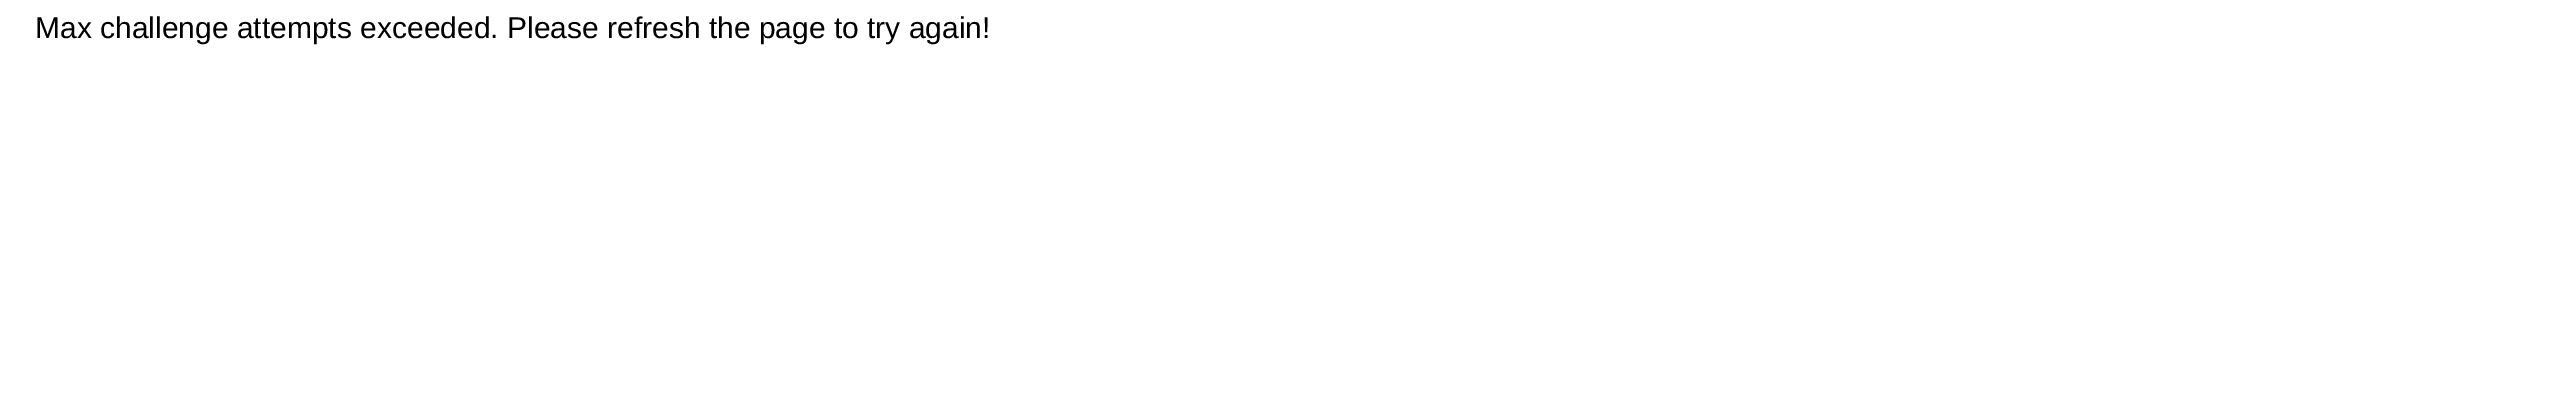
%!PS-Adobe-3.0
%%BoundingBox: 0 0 2561 407
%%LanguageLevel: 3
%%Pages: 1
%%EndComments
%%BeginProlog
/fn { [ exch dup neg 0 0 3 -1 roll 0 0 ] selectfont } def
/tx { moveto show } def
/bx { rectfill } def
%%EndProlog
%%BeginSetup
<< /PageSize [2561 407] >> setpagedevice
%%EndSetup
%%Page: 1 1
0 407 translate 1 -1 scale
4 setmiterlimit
1 setgray
0 0 2561 407 bx
/LiberationSans-Regular 30 fn
0 setgray
(Max challenge attempts exceeded. Please refresh the page to try again!) 35 38 tx
showpage
%%EOF
